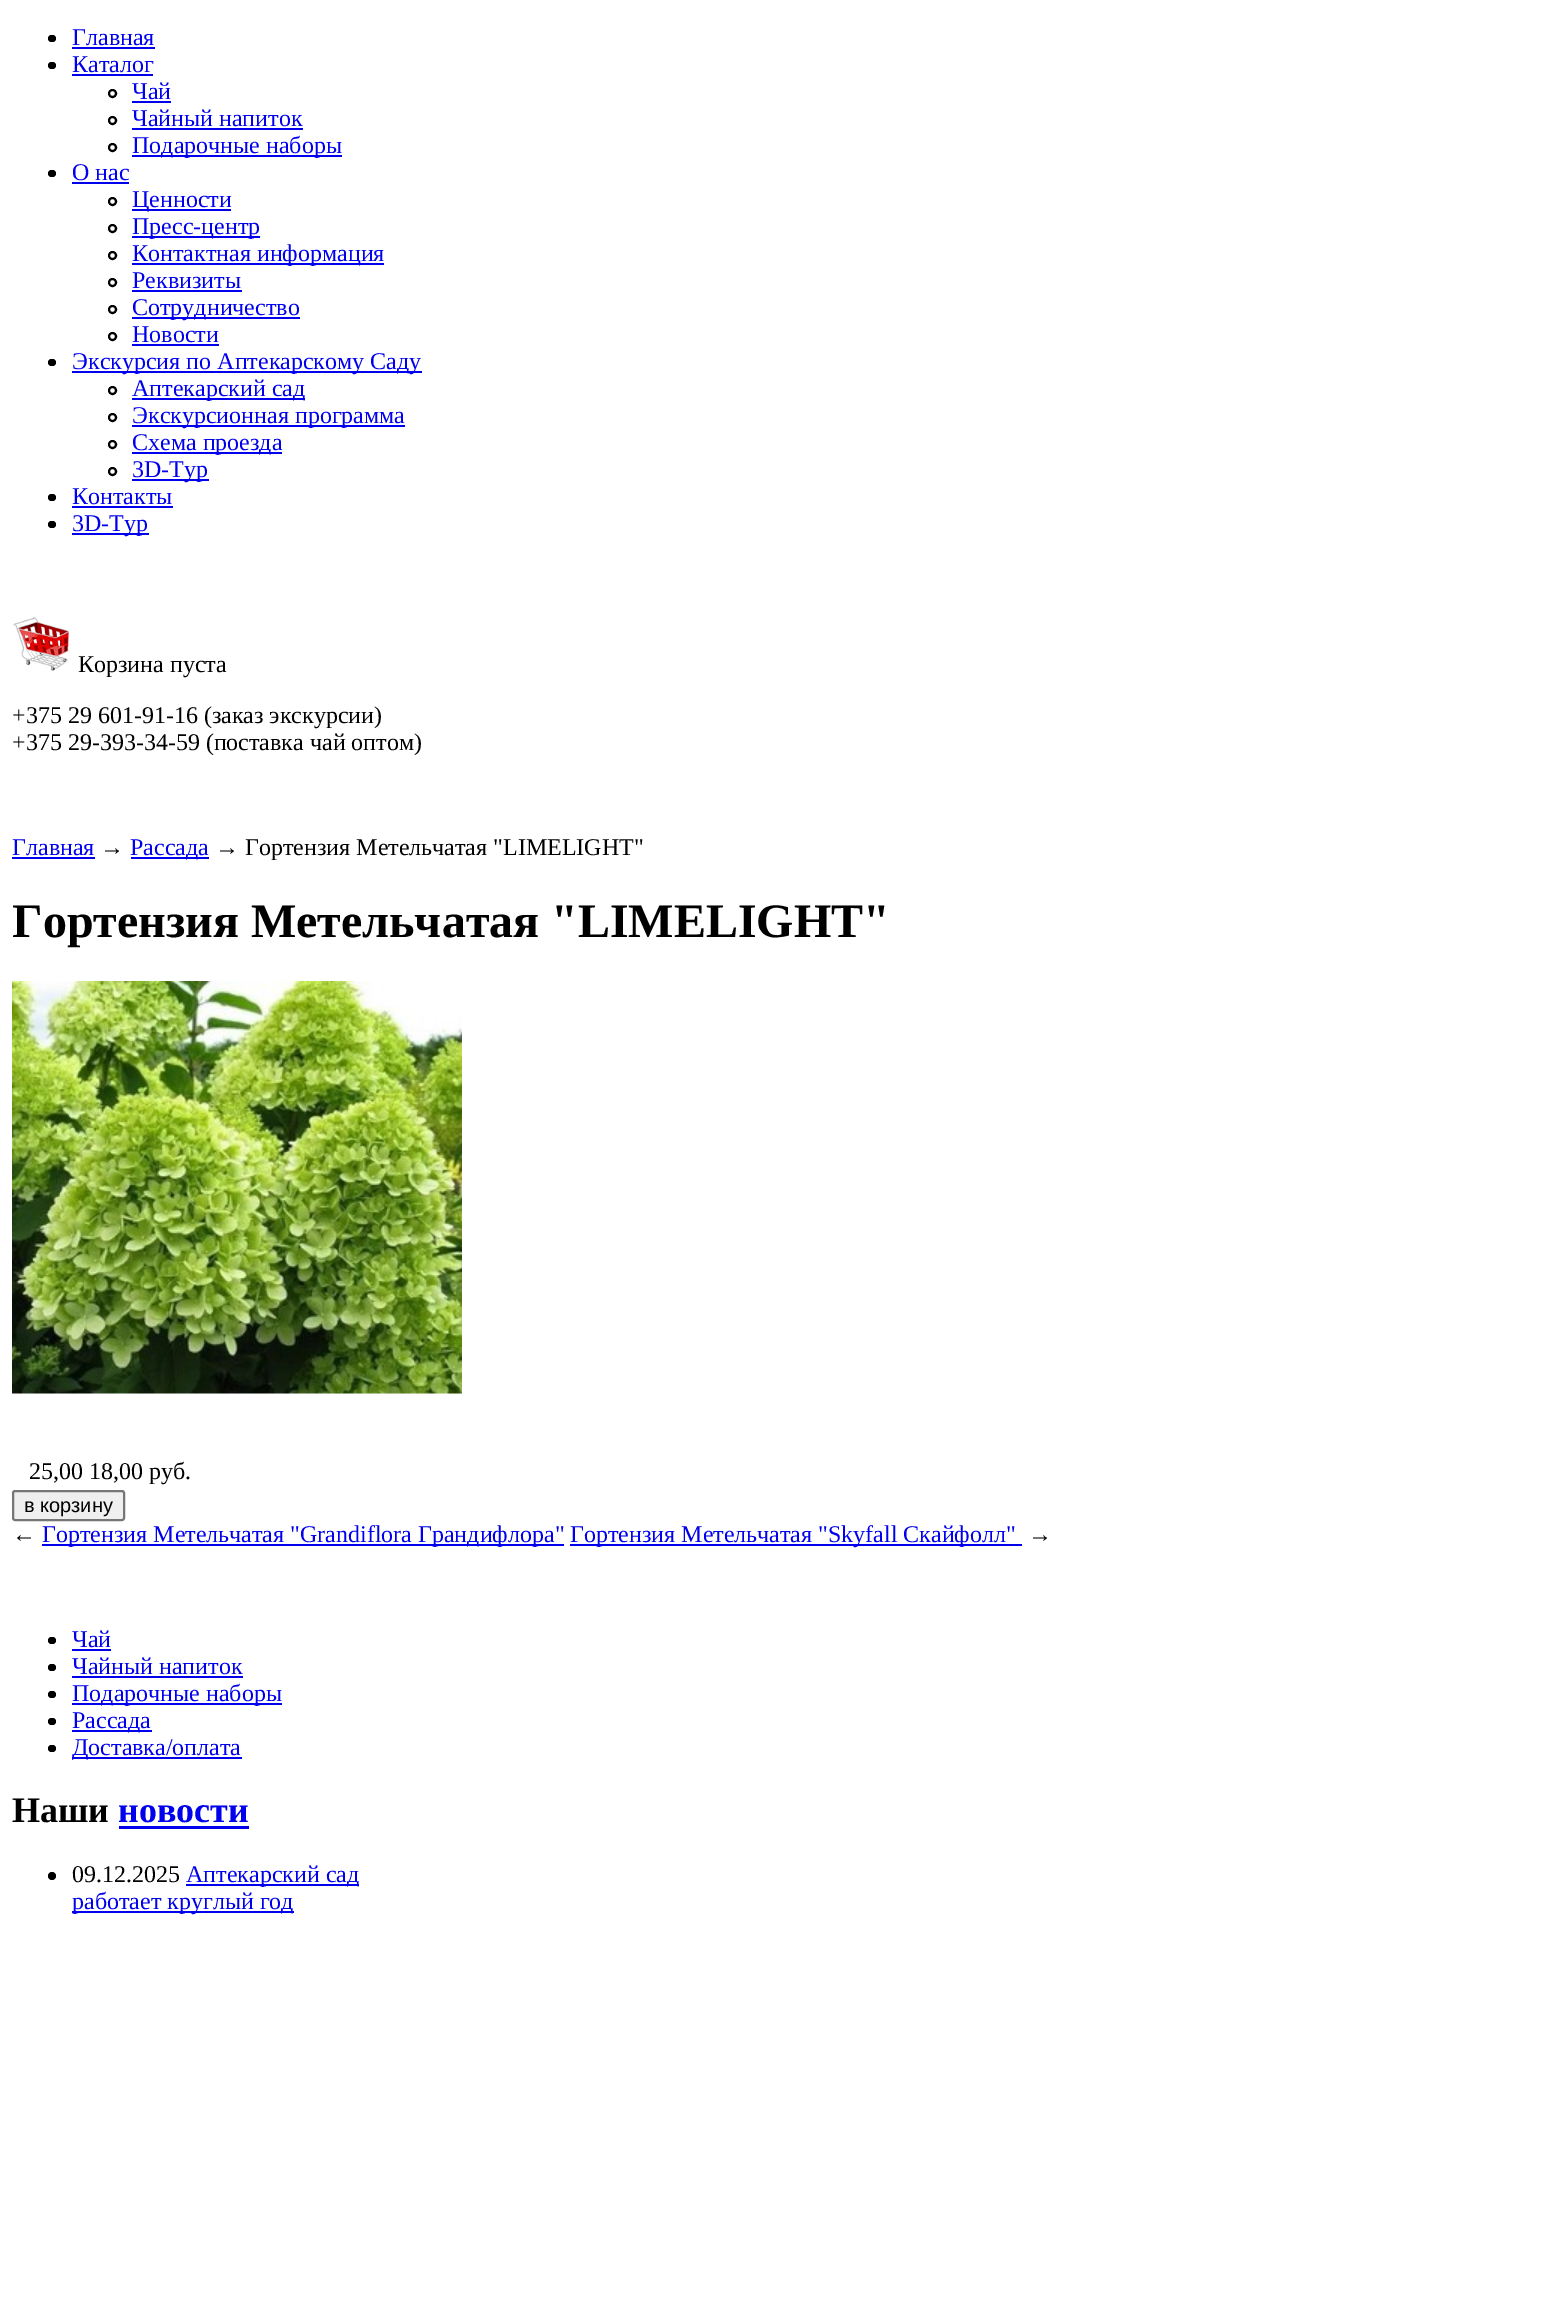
%!PS-Adobe-3.0
%%BoundingBox: 0 0 1545 2317
%%LanguageLevel: 3
%%Pages: 1
%%EndComments
%%BeginProlog
/f { fill } bind def
/S { stroke } bind def
/q { gsave } bind def
/Q { grestore } bind def
/w { setlinewidth } bind def
/fn { [ exch dup neg 0 0 3 -1 roll 0 0 ] selectfont } def
/tx { moveto show } def
/bx { rectfill } def
/ci { newpath 0 360 arc closepath } def
/rr { 5 dict begin { /r /h /w /y /x } { exch def } forall
  x r add y moveto x w add y 2 copy h add r arct x w add y h add x 1 index r arct
  x y h add x y r arct x y 2 copy exch w add exch r arct closepath end } def
/im { 5 dict begin { /h /w /y /x /name } { exch def } forall
  gsave x y translate w h scale
  w h 8 [w 0 0 h 0 0] name (r) file false 3 colorimage grestore end } def
%%EndProlog
%%BeginSetup
<< /PageSize [1545 2317] >> setpagedevice
%%EndSetup
%%Page: 1 1
0 2317 translate 1 -1 scale
4 setmiterlimit
1 setgray
0 0 1545 2317 bx
0 setgray
48 35 8 7 3.5 rr f
/LiberationSerif-Regular 24 fn
0 0 0.933 setrgbcolor
(Главная) 72 45 tx
72 47 83 2 bx
0 setgray
48 62 8 7 3.5 rr f
0 0 0.933 setrgbcolor
(Каталог) 72 72 tx
72 74 81 2 bx
0 setgray
2 w
112.5 93.5 3.5 ci S
0 0 0.933 setrgbcolor
(Чай) 132 99 tx
132 101 39 2 bx
0 setgray
112.5 120.5 3.5 ci S
0 0 0.933 setrgbcolor
(Чайный напиток) 132 126 tx
132 128 171 2 bx
0 setgray
112.5 147.5 3.5 ci S
0 0 0.933 setrgbcolor
132 155 210 2 bx
(Подарочные наборы) 132 153 tx
0 setgray
48 170 8 7 3.5 rr f
0 0 0.933 setrgbcolor
(О нас) 72 180 tx
72 182 57 2 bx
0 setgray
112.5 201.5 3.5 ci S
0 0 0.933 setrgbcolor
132 209 99 2 bx
(Ценности) 132 207 tx
0 setgray
112.5 228.5 3.5 ci S
0 0 0.933 setrgbcolor
132 236 128 2 bx
(Пресс-центр) 132 234 tx
0 setgray
112.5 255.5 3.5 ci S
0 0 0.933 setrgbcolor
132 263 252 2 bx
(Контактная информация) 132 261 tx
0 setgray
112.5 282.5 3.5 ci S
0 0 0.933 setrgbcolor
(Реквизиты) 132 288 tx
132 290 110 2 bx
0 setgray
112.5 309.5 3.5 ci S
0 0 0.933 setrgbcolor
132 317 168 2 bx
(Сотрудничество) 132 315 tx
0 setgray
112.5 336.5 3.5 ci S
0 0 0.933 setrgbcolor
(Новости) 132 342 tx
132 344 87 2 bx
0 setgray
48 359 8 7 3.5 rr f
0 0 0.933 setrgbcolor
72 371 350 2 bx
(Экскурсия по Аптекарскому Саду) 72 369 tx
0 setgray
112.5 390.5 3.5 ci S
0 0 0.933 setrgbcolor
132 398 173 2 bx
(Аптекарский сад) 132 396 tx
0 setgray
112.5 417.5 3.5 ci S
0 0 0.933 setrgbcolor
132 425 273 2 bx
(Экскурсионная программа) 132 423 tx
0 setgray
112.5 444.5 3.5 ci S
0 0 0.933 setrgbcolor
132 452 150 2 bx
(Схема проезда) 132 450 tx
0 setgray
112.5 471.5 3.5 ci S
0 0 0.933 setrgbcolor
132 479 77 2 bx
(3D-Тур) 132 477 tx
0 setgray
48 494 8 7 3.5 rr f
0 0 0.933 setrgbcolor
(Контакты) 72 504 tx
72 506 101 2 bx
0 setgray
48 521 8 7 3.5 rr f
0 0 0.933 setrgbcolor
72 533 77 2 bx
(3D-Тур) 72 531 tx
(image0.raw) 13 617 56 54 im
0 setgray
(Корзина пуста) 78 672 tx
(+375 29 601-91-16 \(заказ экскурсии\)) 12 723 tx
(+375 29-393-34-59 \(поставка чай оптом\)) 12 750 tx
0 0 0.933 setrgbcolor
(Главная) 12 855 tx
12 857 83 2 bx
0 setgray
(→) 100 855 tx
0 0 0.933 setrgbcolor
131 857 78 2 bx
(Рассада) 130 855 tx
0 setgray
(→ Гортензия Метельчатая "LIMELIGHT") 215 855 tx
/LiberationSerif-Bold 48 fn
(Гортензия Метельчатая "LIMELIGHT") 12 937 tx
(image1.raw) 12 981 450 413 im
/LiberationSerif-Regular 24 fn
(25,00 18,00 руб.) 29 1479 tx
0.937 setgray
13 1491 111 29 2 rr q f Q
0.463 setgray
S
/LiberationSans-Regular 20 fn
0 setgray
(в корзину) 24 1512 tx
/LiberationSerif-Regular 24 fn
(←) 12 1542 tx
0 0 0.933 setrgbcolor
42 1544 522 2 bx
(Гортензия Метельчатая "Grandiflora Грандифлора") 42 1542 tx
570 1544 452 2 bx
(Гортензия Метельчатая "Skyfall Скайфолл") 570 1542 tx
0 setgray
(→) 1028 1542 tx
48 1637 8 7 3.5 rr f
0 0 0.933 setrgbcolor
(Чай) 72 1647 tx
72 1649 39 2 bx
0 setgray
48 1664 8 7 3.5 rr f
0 0 0.933 setrgbcolor
(Чайный напиток) 72 1674 tx
72 1676 171 2 bx
0 setgray
48 1691 8 7 3.5 rr f
0 0 0.933 setrgbcolor
72 1703 210 2 bx
(Подарочные наборы) 72 1701 tx
0 setgray
48 1718 8 7 3.5 rr f
0 0 0.933 setrgbcolor
72 1730 80 2 bx
(Рассада) 72 1728 tx
0 setgray
48 1745 8 7 3.5 rr f
0 0 0.933 setrgbcolor
72 1757 170 2 bx
(Доставка/оплата) 72 1755 tx
/LiberationSerif-Bold 36 fn
0 setgray
(Наши) 12 1822 tx
0 0 0.933 setrgbcolor
(новости) 118 1822 tx
119 1826 130 3 bx
0 setgray
52 1876 4 ci f
/LiberationSerif-Regular 24 fn
(09.12.2025) 72 1882 tx
0 0 0.933 setrgbcolor
186 1884 173 2 bx
(Аптекарский сад) 186 1882 tx
72 1911 222 2 bx
(работает круглый год) 72 1909 tx
showpage
%%EOF
